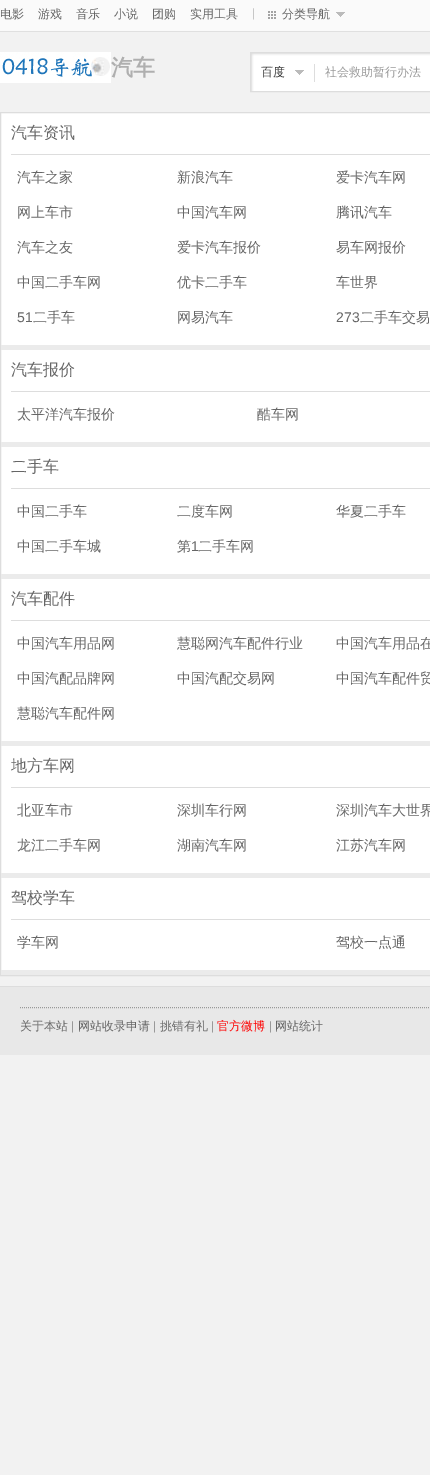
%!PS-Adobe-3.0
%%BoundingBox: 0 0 430 1475
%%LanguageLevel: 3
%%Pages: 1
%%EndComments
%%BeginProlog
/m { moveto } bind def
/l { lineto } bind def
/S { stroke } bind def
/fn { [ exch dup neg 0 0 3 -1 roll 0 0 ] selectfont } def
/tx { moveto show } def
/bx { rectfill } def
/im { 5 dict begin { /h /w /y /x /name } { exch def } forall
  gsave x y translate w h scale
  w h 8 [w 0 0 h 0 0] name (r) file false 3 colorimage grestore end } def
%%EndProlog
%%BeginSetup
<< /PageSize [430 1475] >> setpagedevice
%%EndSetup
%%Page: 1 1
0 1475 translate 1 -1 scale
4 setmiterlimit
0.949 setgray
0 0 430 1475 bx
0.98 setgray
0 0 430 31 bx
0.878 setgray
0 31 430 1 bx
/WenQuanYiZenHei-Medium 12 fn
0.4 setgray
(电影) 0 18 tx
(游戏) 38 18 tx
(音乐) 76 18 tx
(小说) 114 18 tx
(团购) 152 18 tx
(实用工具) 190 18 tx
/LiberationSans-Regular 12 fn
0.78 setgray
(|) 252 17 tx
(image0.raw) 268 11 8 8 im
/WenQuanYiZenHei-Medium 12 fn
0.4 setgray
(分类导航) 282 18 tx
(image1.raw) 336 12 9 5 im
(image2.raw) 0 52 111 31 im
/WenQuanYiZenHei-Bold 22 fn
0.686 setgray
(汽车) 111 75 tx
(image3.raw) 251 53 179 38 im
0.867 setgray
250.5 52.5 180 39 rectstroke
314 64 1 18 bx
/WenQuanYiZenHei-Medium 12 fn
0.2 setgray
(百度) 261 76 tx
(image4.raw) 295 70 9 5 im
0.6 setgray
(社会救助暂行办法) 325 76 tx
1 setgray
1 113 429 857 bx
0.867 setgray
0.5 112.5 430 863 rectstroke
11 154 419 1 bx
/WenQuanYiZenHei-Medium 16 fn
0.4 setgray
(汽车资讯) 11 138 tx
/WenQuanYiZenHei-Medium 14 fn
(汽车之家) 17 182 tx
(新浪汽车) 177 182 tx
(爱卡汽车网) 336 182 tx
(网上车市) 17 217 tx
(中国汽车网) 177 217 tx
(腾讯汽车) 336 217 tx
(汽车之友) 17 252 tx
(爱卡汽车报价) 177 252 tx
(易车网报价) 336 252 tx
(中国二手车网) 17 287 tx
(优卡二手车) 177 287 tx
(车世界) 336 287 tx
/LiberationSans-Regular 14 fn
(51) 17 322 tx
/WenQuanYiZenHei-Medium 14 fn
(二手车) 33 322 tx
(网易汽车) 177 322 tx
/LiberationSans-Regular 14 fn
(273) 336 322 tx
/WenQuanYiZenHei-Medium 14 fn
(二手车交易) 360 322 tx
0.922 setgray
1 345 429 5 bx
0.867 setgray
11 391 419 1 bx
/WenQuanYiZenHei-Medium 16 fn
0.4 setgray
(汽车报价) 11 375 tx
/WenQuanYiZenHei-Medium 14 fn
(太平洋汽车报价) 17 419 tx
(酷车网) 257 419 tx
0.922 setgray
1 442 429 5 bx
0.867 setgray
11 488 419 1 bx
/WenQuanYiZenHei-Medium 16 fn
0.4 setgray
(二手车) 11 472 tx
/WenQuanYiZenHei-Medium 14 fn
(中国二手车) 17 516 tx
(二度车网) 177 516 tx
(华夏二手车) 336 516 tx
(中国二手车城) 17 551 tx
(第) 177 551 tx
/LiberationSans-Regular 14 fn
(1) 191 551 tx
/WenQuanYiZenHei-Medium 14 fn
(二手车网) 198 551 tx
0.922 setgray
1 574 429 5 bx
0.867 setgray
11 620 419 1 bx
/WenQuanYiZenHei-Medium 16 fn
0.4 setgray
(汽车配件) 11 604 tx
/WenQuanYiZenHei-Medium 14 fn
(中国汽车用品网) 17 648 tx
(慧聪网汽车配件行业) 177 648 tx
(中国汽车用品在) 336 648 tx
(中国汽配品牌网) 17 683 tx
(中国汽配交易网) 177 683 tx
(中国汽车配件贸) 336 683 tx
(慧聪汽车配件网) 17 718 tx
0.922 setgray
1 741 429 5 bx
0.867 setgray
11 787 419 1 bx
/WenQuanYiZenHei-Medium 16 fn
0.4 setgray
(地方车网) 11 771 tx
/WenQuanYiZenHei-Medium 14 fn
(北亚车市) 17 815 tx
(深圳车行网) 177 815 tx
(深圳汽车大世界) 336 815 tx
(龙江二手车网) 17 850 tx
(湖南汽车网) 177 850 tx
(江苏汽车网) 336 850 tx
0.922 setgray
1 873 429 5 bx
0.867 setgray
11 919 419 1 bx
/WenQuanYiZenHei-Medium 16 fn
0.4 setgray
(驾校学车) 11 903 tx
/WenQuanYiZenHei-Medium 14 fn
(学车网) 17 947 tx
(驾校一点通) 336 947 tx
0.922 setgray
1 970 429 5 bx
0.91 setgray
0 987 430 68 bx
0.867 setgray
0 986 430 1 bx
0.6 setgray
[1 1] 0 setdash
20 1007.5 m 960 1007.5 l S
/WenQuanYiZenHei-Medium 12 fn
0.4 setgray
(关于本站) 20 1030 tx
/LiberationSans-Regular 12 fn
0.6 setgray
(|) 71 1030 tx
/WenQuanYiZenHei-Medium 12 fn
0.4 setgray
(网站收录申请) 78 1030 tx
/LiberationSans-Regular 12 fn
0.6 setgray
(|) 153 1030 tx
/WenQuanYiZenHei-Medium 12 fn
0.4 setgray
(挑错有礼) 160 1030 tx
/LiberationSans-Regular 12 fn
0.6 setgray
(|) 211 1030 tx
/WenQuanYiZenHei-Medium 12 fn
1 0 0 setrgbcolor
(官方微博) 217 1030 tx
/LiberationSans-Regular 12 fn
0.6 setgray
(|) 269 1030 tx
/WenQuanYiZenHei-Medium 12 fn
0.4 setgray
(网站统计) 275 1030 tx
showpage
%%EOF
